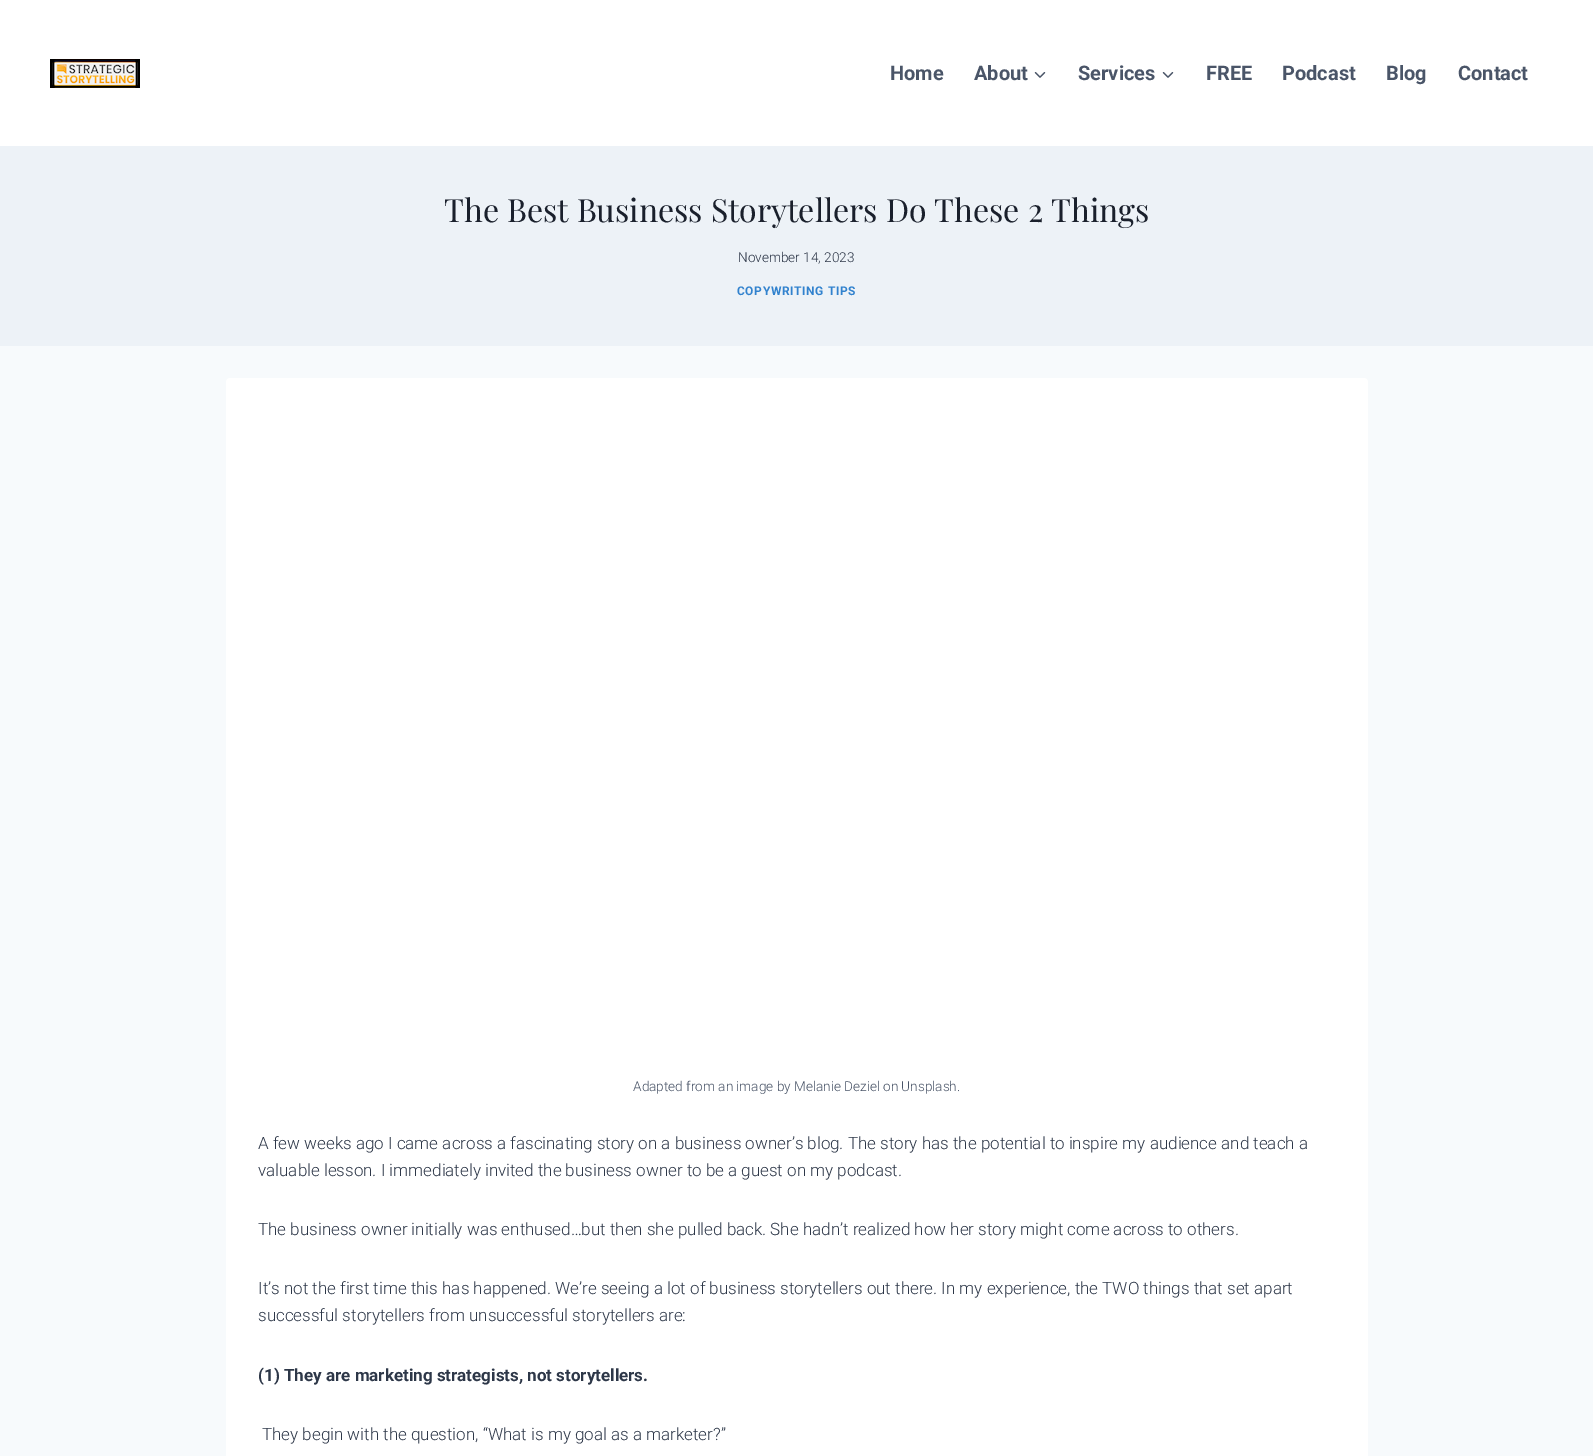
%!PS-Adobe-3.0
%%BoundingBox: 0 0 1593 1456
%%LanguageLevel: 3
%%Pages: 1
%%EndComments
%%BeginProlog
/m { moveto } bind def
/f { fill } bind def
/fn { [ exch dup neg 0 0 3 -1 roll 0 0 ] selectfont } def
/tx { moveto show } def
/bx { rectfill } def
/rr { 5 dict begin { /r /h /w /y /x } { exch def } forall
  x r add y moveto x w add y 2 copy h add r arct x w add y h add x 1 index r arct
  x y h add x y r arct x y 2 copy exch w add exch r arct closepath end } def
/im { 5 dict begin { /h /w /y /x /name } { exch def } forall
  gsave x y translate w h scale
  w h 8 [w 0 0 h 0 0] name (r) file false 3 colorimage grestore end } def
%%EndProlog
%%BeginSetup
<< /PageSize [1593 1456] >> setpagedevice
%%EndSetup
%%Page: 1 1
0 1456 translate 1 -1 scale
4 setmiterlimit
0.969 0.98 0.988 setrgbcolor
0 0 1593 1456 bx
1 setgray
0 0 1593 146 bx
(image0.raw) 50 59 90 29 im
/Roboto-Bold 20 fn
0.29 0.333 0.408 setrgbcolor
(Home) 890 80 tx
(About) 974 80 tx
(image1.raw) 1034 72 12 6 im
(Services) 1078 80 tx
(image1.raw) 1162 72 12 6 im
(FREE) 1206 80 tx
(Podcast) 1282 80 tx
(Blog) 1386 80 tx
(Contact) 1458 80 tx
0.929 0.949 0.969 setrgbcolor
0 146 1593 200 bx
/PlayfairDisplay-Regular 32 fn
0.102 0.125 0.173 setrgbcolor
(The Best Business Storytellers Do These 2 Things) 444 222 tx
/Roboto-Light 13.6 fn
0.176 0.216 0.282 setrgbcolor
(November 14, 2023) 738 262 tx
/Roboto-Bold 12 fn
0.192 0.51 0.808 setrgbcolor
737 295 m 0.6 0 (COPYWRITING TIPS) ashow
1 setgray
226 378 1142 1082 4 rr f
/Roboto-Light 13.6 fn
0.29 0.333 0.408 setrgbcolor
(Adapted from an image by Melanie Deziel on Unsplash.) 633 1091 tx
/Roboto-Light 17 fn
0.176 0.216 0.282 setrgbcolor
(A few weeks ago I came across a fascinating story on a business owner’s blog. The story has the potential to inspire my audience and teach a) 258 1149 tx
(valuable lesson. I immediately invited the business owner to be a guest on my podcast.) 258 1176 tx
(The business owner initially was enthused…but then she pulled back. She hadn’t realized how her story might come across to others.) 258 1235 tx
(It’s not the first time this has happened. We’re seeing a lot of business storytellers out there. In my experience, the TWO things that set apart) 258 1294 tx
(successful storytellers from unsuccessful storytellers are:) 258 1321 tx
/Roboto-Bold 17 fn
(\(1\) They are marketing strategists, not storytellers.) 258 1381 tx
/Roboto-Light 17 fn
(They begin with the question, “What is my goal as a marketer?”) 262 1440 tx
showpage
%%EOF
